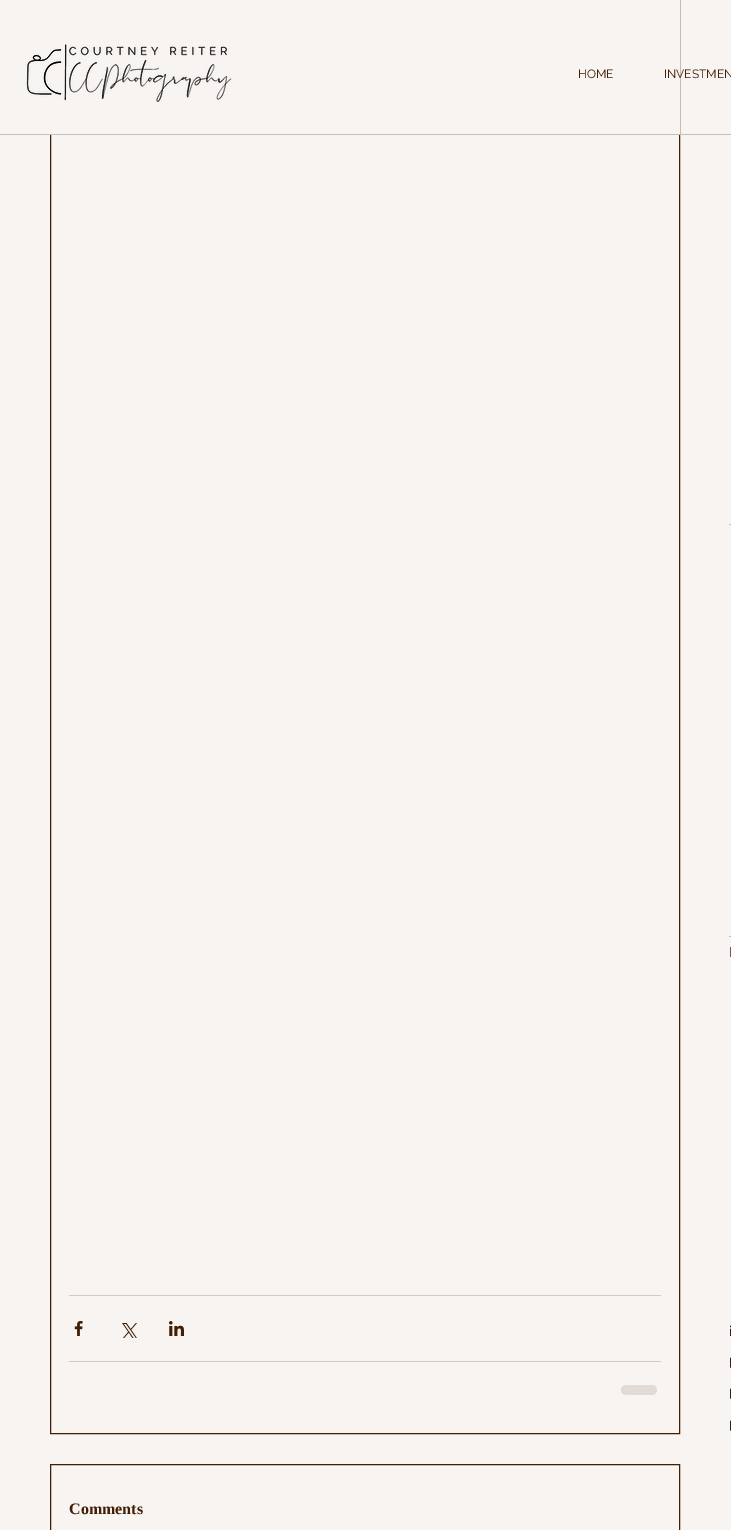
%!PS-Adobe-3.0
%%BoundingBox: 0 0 731 1530
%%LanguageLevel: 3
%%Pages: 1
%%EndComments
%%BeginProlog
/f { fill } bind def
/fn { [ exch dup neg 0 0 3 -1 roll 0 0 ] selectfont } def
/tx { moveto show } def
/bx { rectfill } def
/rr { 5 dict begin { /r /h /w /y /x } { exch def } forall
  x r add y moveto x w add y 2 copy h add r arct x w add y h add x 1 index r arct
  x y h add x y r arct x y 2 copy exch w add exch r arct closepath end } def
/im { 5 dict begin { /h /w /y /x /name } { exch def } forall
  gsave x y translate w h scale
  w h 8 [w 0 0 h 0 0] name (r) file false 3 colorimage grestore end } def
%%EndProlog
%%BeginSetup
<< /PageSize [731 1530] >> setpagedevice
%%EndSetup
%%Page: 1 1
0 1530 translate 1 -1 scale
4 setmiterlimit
0.973 0.957 0.945 setrgbcolor
0 0 731 1530 bx
0.255 0.118 0.024 setrgbcolor
50.5 -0.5 629 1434 rectstroke
0.973 0.957 0.945 setrgbcolor
50 0 630 134 bx
0.792 0.749 0.714 setrgbcolor
0 134 731 1 bx
(image0.raw) 25 44 207 58 im
/Raleway-Regular 12 fn
0.255 0.118 0.024 setrgbcolor
(HOME) 578 78 tx
(INVESTMEN) 664 78 tx
0.792 0.749 0.714 setrgbcolor
729 524 2 1 bx
729 936 2 1 bx
/Raleway-Regular 14 fn
0.255 0.118 0.024 setrgbcolor
(I) 729 957 tx
(i) 729 1336 tx
(l) 729 1368 tx
(l) 729 1399 tx
(l) 729 1431 tx
0.827 0.788 0.761 setrgbcolor
69 1295 592 1 bx
(image1.raw) 74 1321 9 15 im
(image2.raw) 122 1323 15 15 im
(image3.raw) 169 1321 15 15 im
69 1361 592 1 bx
0.886 0.855 0.835 setrgbcolor
621 1385 36 10 5 rr f
0.255 0.118 0.024 setrgbcolor
50.5 1464.5 629 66 rectstroke
/LiberationSerif-Bold 16 fn
(Comments) 69 1514 tx
showpage
%%EOF
